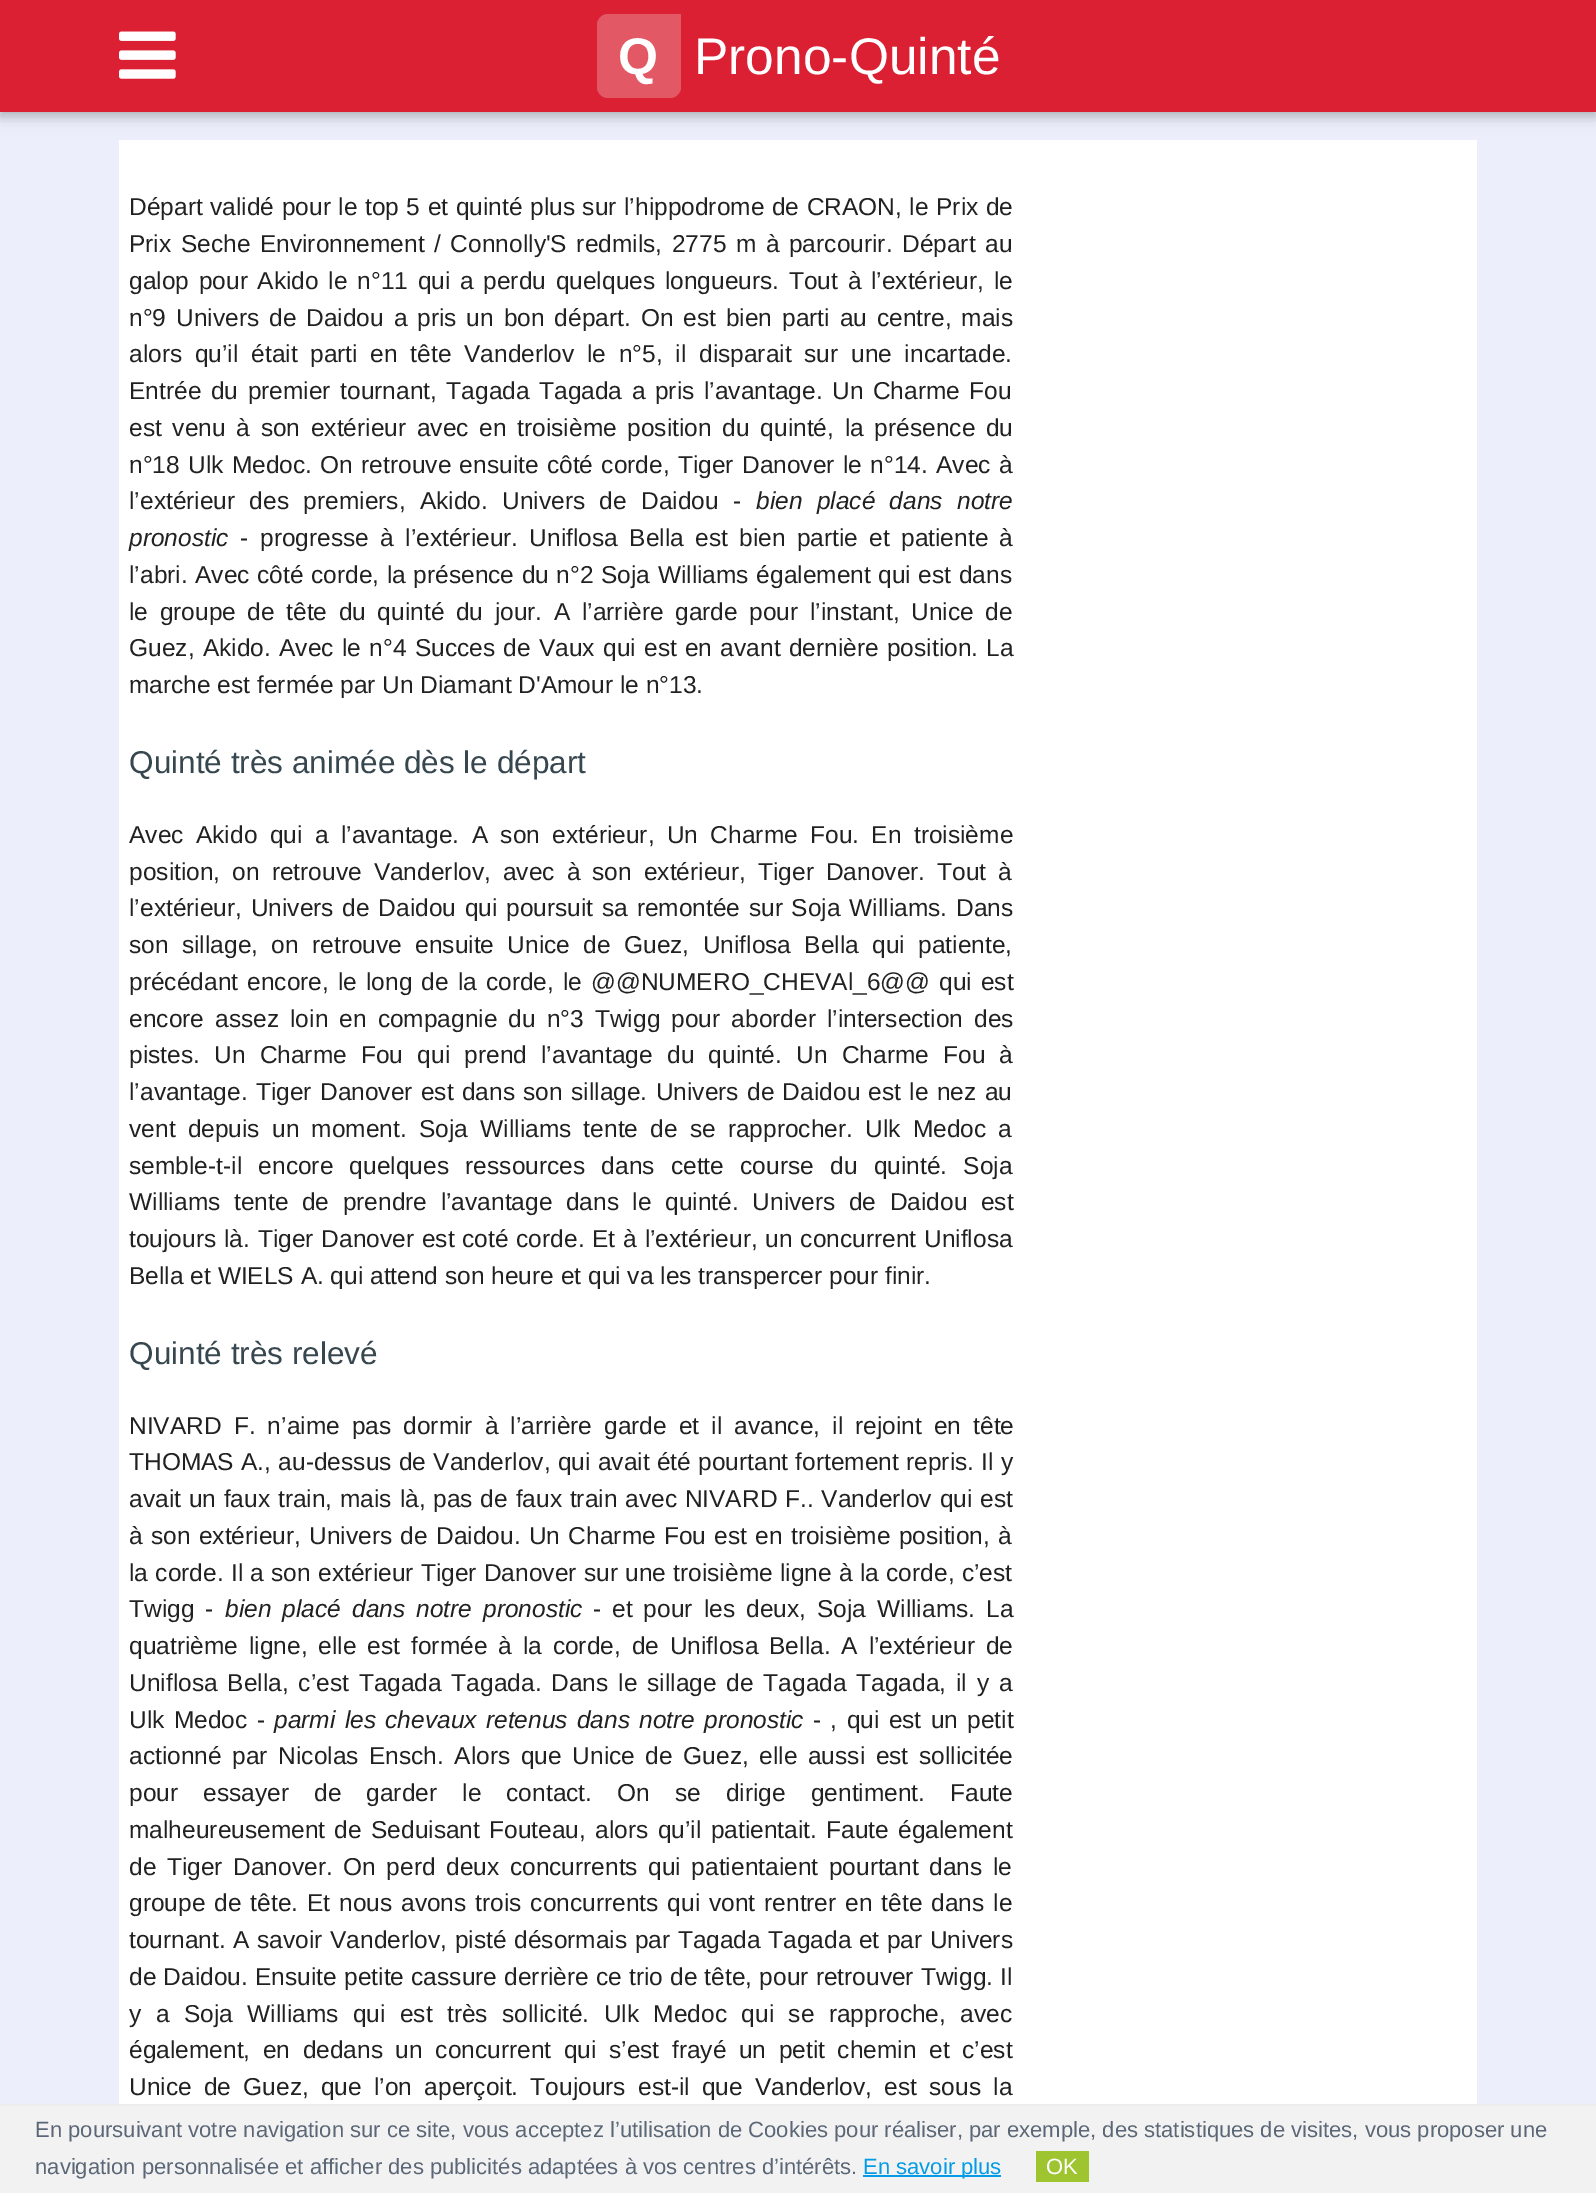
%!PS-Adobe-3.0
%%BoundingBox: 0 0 1596 2193
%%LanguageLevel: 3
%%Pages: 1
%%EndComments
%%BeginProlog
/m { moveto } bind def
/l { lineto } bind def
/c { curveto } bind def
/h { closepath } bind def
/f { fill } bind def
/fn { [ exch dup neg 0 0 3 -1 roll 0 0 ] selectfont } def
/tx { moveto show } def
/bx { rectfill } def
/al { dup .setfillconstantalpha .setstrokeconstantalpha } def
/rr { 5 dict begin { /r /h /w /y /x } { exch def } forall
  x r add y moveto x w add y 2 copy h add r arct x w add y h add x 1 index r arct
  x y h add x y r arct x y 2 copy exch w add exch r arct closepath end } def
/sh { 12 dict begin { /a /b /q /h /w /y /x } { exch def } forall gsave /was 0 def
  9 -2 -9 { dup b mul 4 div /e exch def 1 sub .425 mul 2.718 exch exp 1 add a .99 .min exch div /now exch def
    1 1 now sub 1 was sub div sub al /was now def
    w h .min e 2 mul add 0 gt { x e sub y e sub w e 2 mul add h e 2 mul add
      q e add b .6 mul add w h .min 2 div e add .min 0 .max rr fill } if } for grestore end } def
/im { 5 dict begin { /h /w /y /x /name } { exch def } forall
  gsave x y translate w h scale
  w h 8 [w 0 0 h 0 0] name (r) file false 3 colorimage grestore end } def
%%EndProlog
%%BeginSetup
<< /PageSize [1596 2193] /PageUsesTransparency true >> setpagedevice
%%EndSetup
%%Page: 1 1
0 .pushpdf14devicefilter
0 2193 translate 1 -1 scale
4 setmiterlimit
0.925 0.937 0.984 setrgbcolor
0 0 1596 2193 bx
1 setgray
119 140 1358 1964 bx
0 setgray
0 4 1596 112 0 9 0.12 sh
0 4 1596 112 0 4.5 0.16 sh
0.855 0.125 0.196 setrgbcolor
0 0 1596 112 bx
(image0.raw) 119 31 57 48 im
0.89 0.345 0.396 setrgbcolor
608 14 m 681 14 l 681 87 l 681 93 676 98 670 98 c 608 98 l 602 98 597 93 597 87 c 597 25 l 597 19 602 14 608 14 c h f
/LiberationSans-Bold 51.5 fn
1 setgray
(Q) 618 74 tx
/LiberationSans-Regular 51.5 fn
(Prono-Quinté) 694 74 tx
/LiberationSans-Regular 24.5 fn
0.129 setgray
129 215 m 0.75 0 32 (Départ validé pour le top 5 et quinté plus sur l’hippodrome de CRAON, le Prix de) widthshow
129 252 m 2.75 0 32 (Prix Seche Environnement / Connolly'S redmils, 2775 m à parcourir. Départ au) widthshow
129 289 m 2.9 0 32 (galop pour Akido le n°11 qui a perdu quelques longueurs. Tout à l’extérieur, le) widthshow
129 326 m 3.1 0 32 (n°9 Univers de Daidou a pris un bon départ. On est bien parti au centre, mais) widthshow
129 362 m 5.9 0 32 (alors qu’il était parti en tête Vanderlov le n°5, il disparait sur une incartade.) widthshow
129 399 m 2.75 0 32 (Entrée du premier tournant, Tagada Tagada a pris l’avantage. Un Charme Fou) widthshow
129 436 m 3.9 0 32 (est venu à son extérieur avec en troisième position du quinté, la présence du) widthshow
129 473 m 1.5 0 32 (n°18 Ulk Medoc. On retrouve ensuite côté corde, Tiger Danover le n°14. Avec à) widthshow
129 509 m 7.5 0 32 (l’extérieur des premiers, Akido. Univers de Daidou -) widthshow
/LiberationSans-Italic 24.5 fn
756 509 m 7.5 0 32 (bien placé dans notre) widthshow
(pronostic) 129 546 tx
/LiberationSans-Regular 24.5 fn
(-) 240 546 tx
260 546 m 4.5 0 32 (progresse à l’extérieur. Uniflosa Bella est bien partie et patiente à) widthshow
129 583 m 0.75 0 32 (l’abri. Avec côté corde, la présence du n°2 Soja Williams également qui est dans) widthshow
129 620 m 4.75 0 32 (le groupe de tête du quinté du jour. A l’arrière garde pour l’instant, Unice de) widthshow
129 656 m 1.5 0 32 (Guez, Akido. Avec le n°4 Succes de Vaux qui est en avant dernière position. La) widthshow
(marche est fermée par Un Diamant D'Amour le n°13.) 129 693 tx
/LiberationSans-Regular 31.5 fn
0.216 0.278 0.31 setrgbcolor
(Quinté très animée dès le départ) 129 773 tx
/LiberationSans-Regular 24.5 fn
0.129 setgray
129 843 m 5.6 0 32 (Avec Akido qui a l’avantage. A son extérieur, Un Charme Fou. En troisième) widthshow
129 880 m 5.25 0 32 (position, on retrouve Vanderlov, avec à son extérieur, Tiger Danover. Tout à) widthshow
129 916 m 1.9 0 32 (l’extérieur, Univers de Daidou qui poursuit sa remontée sur Soja Williams. Dans) widthshow
129 953 m 6.5 0 32 (son sillage, on retrouve ensuite Unice de Guez, Uniflosa Bella qui patiente,) widthshow
129 990 m 2.25 0 32 (précédant encore, le long de la corde, le @@NUMERO_CHEVAl_6@@ qui est) widthshow
129 1027 m 4.25 0 32 (encore assez loin en compagnie du n°3 Twigg pour aborder l’intersection des) widthshow
129 1063 m 7.4 0 32 (pistes. Un Charme Fou qui prend l’avantage du quinté. Un Charme Fou à) widthshow
129 1100 m 1.5 0 32 (l’avantage. Tiger Danover est dans son sillage. Univers de Daidou est le nez au) widthshow
129 1137 m 5.4 0 32 (vent depuis un moment. Soja Williams tente de se rapprocher. Ulk Medoc a) widthshow
129 1174 m 9.5 0 32 (semble-t-il encore quelques ressources dans cette course du quinté. Soja) widthshow
129 1210 m 6.75 0 32 (Williams tente de prendre l’avantage dans le quinté. Univers de Daidou est) widthshow
129 1247 m 1 0 32 (toujours là. Tiger Danover est coté corde. Et à l’extérieur, un concurrent Uniflosa) widthshow
(Bella et WIELS A. qui attend son heure et qui va les transpercer pour finir.) 129 1284 tx
/LiberationSans-Regular 31.5 fn
0.216 0.278 0.31 setrgbcolor
(Quinté très relevé) 129 1364 tx
/LiberationSans-Regular 24.5 fn
0.129 setgray
129 1434 m 5.25 0 32 (NIVARD F. n’aime pas dormir à l’arrière garde et il avance, il rejoint en tête) widthshow
129 1470 m 0.5 0 32 (THOMAS A., au-dessus de Vanderlov, qui avait été pourtant fortement repris. Il y) widthshow
129 1507 m 1 0 32 (avait un faux train, mais là, pas de faux train avec NIVARD F.. Vanderlov qui est) widthshow
129 1544 m 1.5 0 32 (à son extérieur, Univers de Daidou. Un Charme Fou est en troisième position, à) widthshow
129 1581 m 0.5 0 32 (la corde. Il a son extérieur Tiger Danover sur une troisième ligne à la corde, c’est) widthshow
129 1617 m 4.25 0 32 (Twigg -) widthshow
/LiberationSans-Italic 24.5 fn
225 1617 m 4.25 0 32 (bien placé dans notre pronostic) widthshow
/LiberationSans-Regular 24.5 fn
(-) 593 1617 tx
612 1617 m 4.25 0 32 (et pour les deux, Soja Williams. La) widthshow
129 1654 m 4.1 0 32 (quatrième ligne, elle est formée à la corde, de Uniflosa Bella. A l’extérieur de) widthshow
129 1691 m 3 0 32 (Uniflosa Bella, c’est Tagada Tagada. Dans le sillage de Tagada Tagada, il y a) widthshow
129 1728 m 2.5 0 32 (Ulk Medoc -) widthshow
/LiberationSans-Italic 24.5 fn
274 1728 m 2.5 0 32 (parmi les chevaux retenus dans notre pronostic) widthshow
/LiberationSans-Regular 24.5 fn
813 1728 m 2.5 0 32 (- , qui est un petit) widthshow
129 1764 m 3.75 0 32 (actionné par Nicolas Ensch. Alors que Unice de Guez, elle aussi est sollicitée) widthshow
129 1801 m 18.25 0 32 (pour essayer de garder le contact. On se dirige gentiment. Faute) widthshow
129 1838 m 2.5 0 32 (malheureusement de Seduisant Fouteau, alors qu’il patientait. Faute également) widthshow
129 1875 m 3.75 0 32 (de Tiger Danover. On perd deux concurrents qui patientaient pourtant dans le) widthshow
129 1911 m 2.1 0 32 (groupe de tête. Et nous avons trois concurrents qui vont rentrer en tête dans le) widthshow
129 1948 m 0.75 0 32 (tournant. A savoir Vanderlov, pisté désormais par Tagada Tagada et par Univers) widthshow
129 1985 m 0.4 0 32 (de Daidou. Ensuite petite cassure derrière ce trio de tête, pour retrouver Twigg. Il) widthshow
129 2022 m 7.6 0 32 (y a Soja Williams qui est très sollicité. Ulk Medoc qui se rapproche, avec) widthshow
129 2058 m 5.75 0 32 (également, en dedans un concurrent qui s’est frayé un petit chemin et c’est) widthshow
129 2095 m 5.4 0 32 (Unice de Guez, que l’on aperçoit. Toujours est-il que Vanderlov, est sous la) widthshow
0.949 setgray
0 2106 1596 87 bx
0.929 setgray
0 2104 1596 2 bx
/LiberationSans-Regular 22.05 fn
0.357 0.404 0.463 setrgbcolor
(En poursuivant votre navigation sur ce site, vous acceptez l’utilisation de Cookies pour réaliser, par exemple, des statistiques de visites, vous proposer une) 35 2137 tx
(navigation personnalisée et afficher des publicités adaptées à vos centres d’intérêts.) 35 2174 tx
0.012 0.608 0.898 setrgbcolor
863 2175 138 2 bx
(En savoir plus) 863 2174 tx
0.62 0.769 0.184 setrgbcolor
1036 2151 53 31 bx
1 setgray
(OK) 1046 2174 tx
.poppdf14devicefilter showpage
%%EOF
